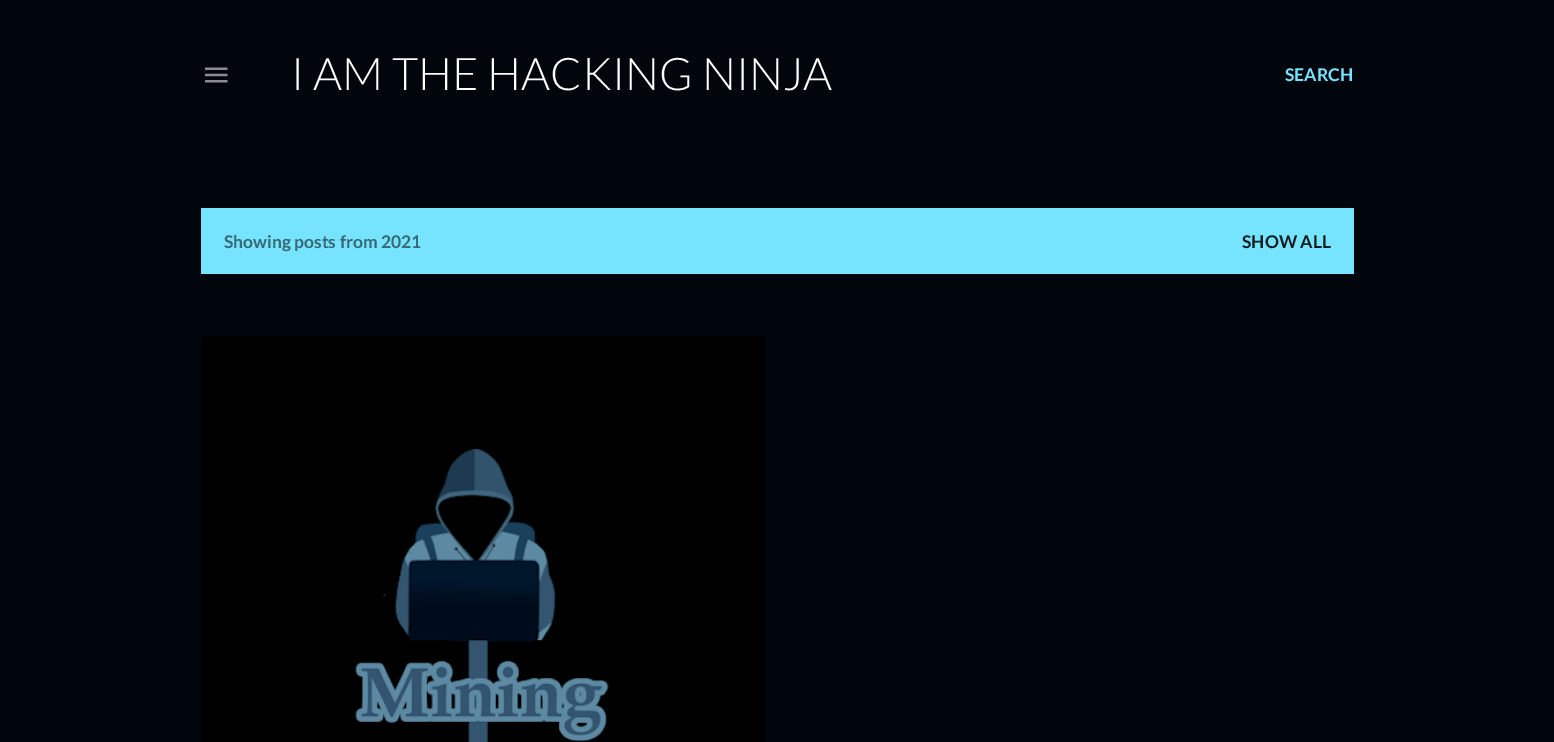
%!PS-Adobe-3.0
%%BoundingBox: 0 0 1554 742
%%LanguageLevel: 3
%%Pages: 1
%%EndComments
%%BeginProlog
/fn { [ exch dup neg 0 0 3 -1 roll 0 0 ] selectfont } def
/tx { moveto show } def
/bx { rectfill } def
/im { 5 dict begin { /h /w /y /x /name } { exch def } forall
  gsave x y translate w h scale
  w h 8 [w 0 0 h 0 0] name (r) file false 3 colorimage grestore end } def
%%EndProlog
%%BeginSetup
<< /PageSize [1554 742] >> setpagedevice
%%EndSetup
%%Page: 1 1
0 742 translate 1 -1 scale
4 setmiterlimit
0.004 0.02 0.047 setrgbcolor
0 0 1554 742 bx
(image0.raw) 205 67 23 16 im
/Lato-Light 45 fn
1 setgray
(I AM THE HACKING NINJA) 291 90 tx
/Lato-Bold 17.5 fn
0.467 0.894 1 setrgbcolor
(SEARCH) 1285 81 tx
201 208 1153 66 bx
0.216 0.412 0.459 setrgbcolor
(Showing posts from 2021) 224 248 tx
0.059 0.118 0.129 setrgbcolor
(SHOW ALL) 1242 248 tx
(image1.raw) 201 336 564 406 im
showpage
%%EOF
